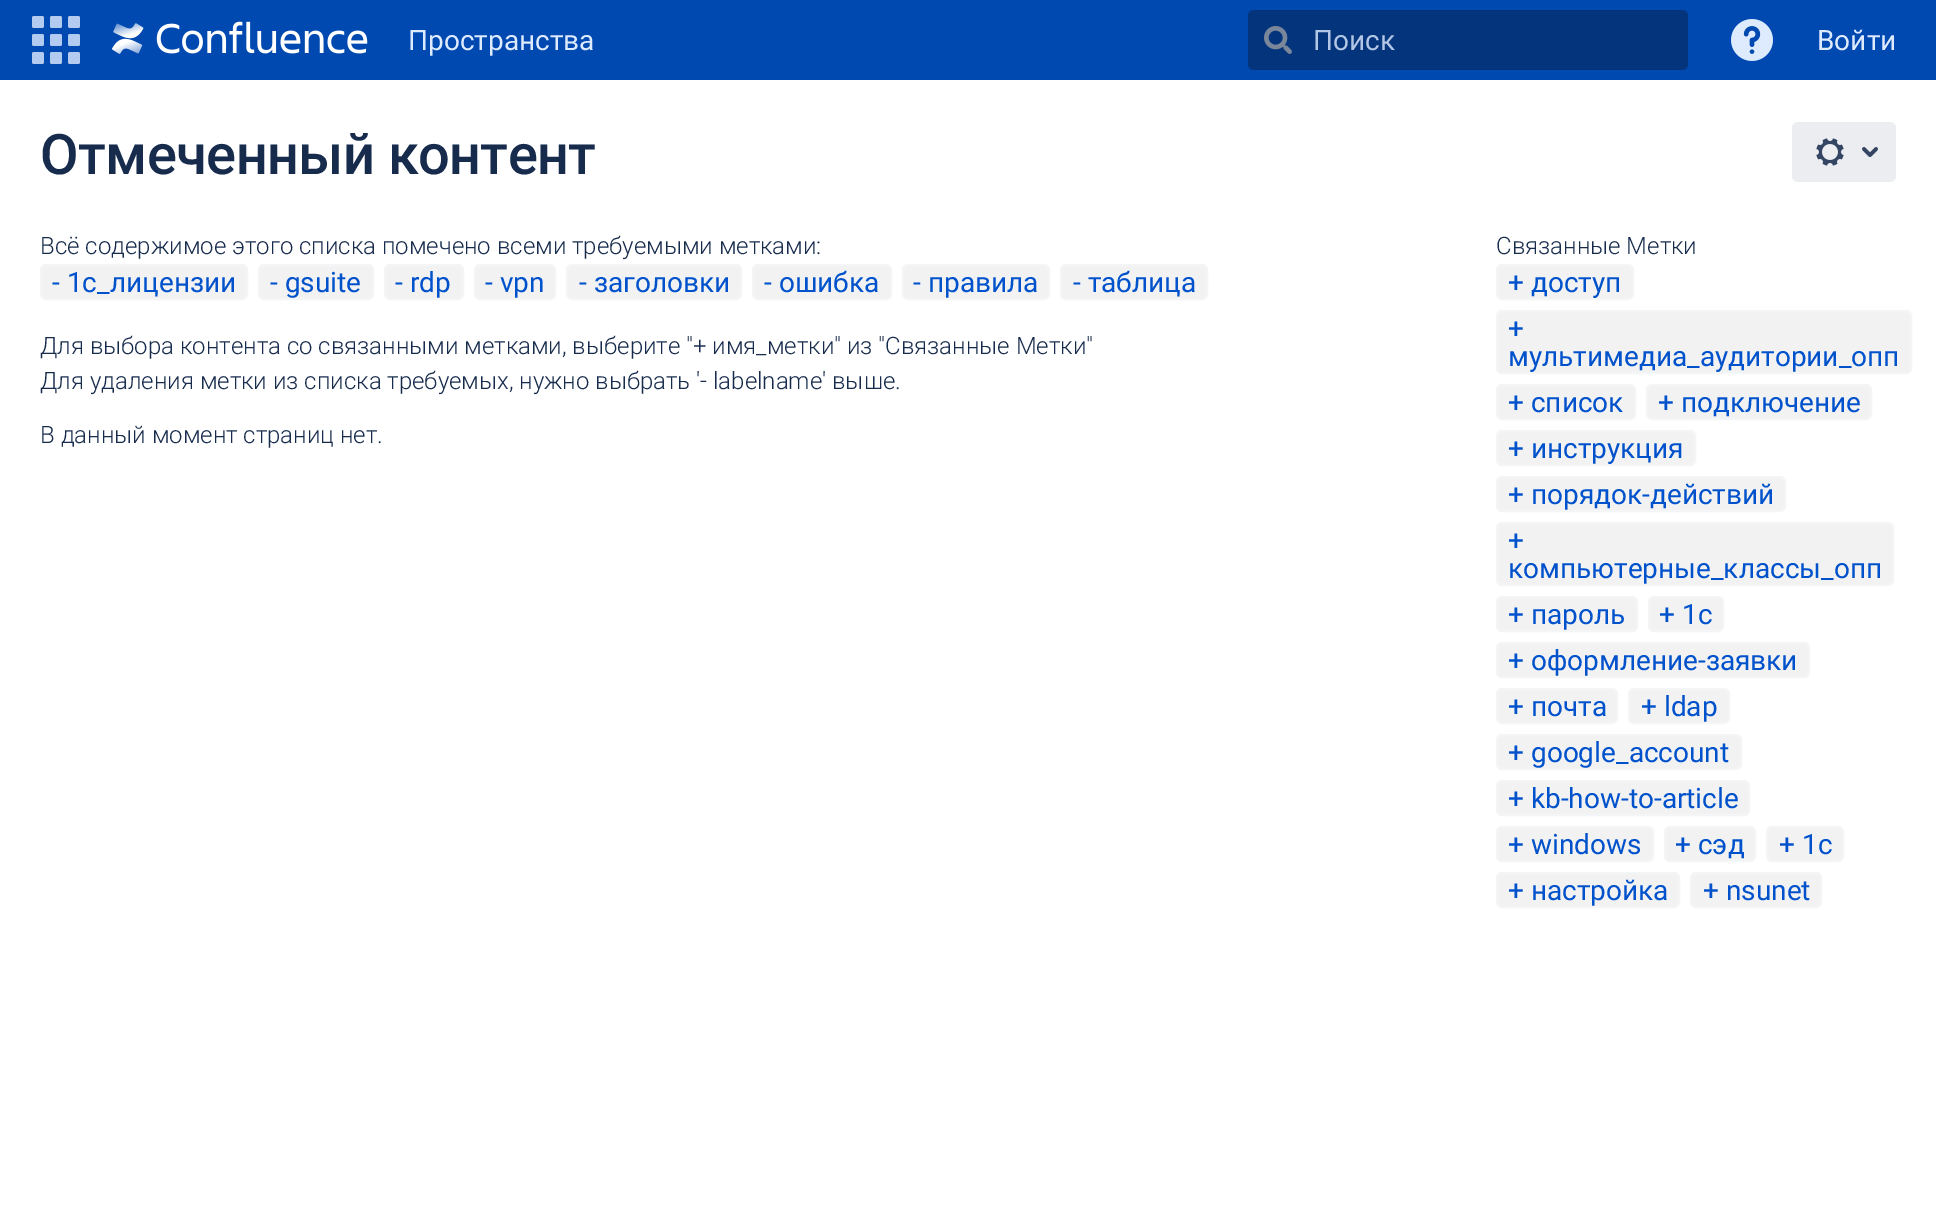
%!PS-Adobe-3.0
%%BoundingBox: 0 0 1936 1217
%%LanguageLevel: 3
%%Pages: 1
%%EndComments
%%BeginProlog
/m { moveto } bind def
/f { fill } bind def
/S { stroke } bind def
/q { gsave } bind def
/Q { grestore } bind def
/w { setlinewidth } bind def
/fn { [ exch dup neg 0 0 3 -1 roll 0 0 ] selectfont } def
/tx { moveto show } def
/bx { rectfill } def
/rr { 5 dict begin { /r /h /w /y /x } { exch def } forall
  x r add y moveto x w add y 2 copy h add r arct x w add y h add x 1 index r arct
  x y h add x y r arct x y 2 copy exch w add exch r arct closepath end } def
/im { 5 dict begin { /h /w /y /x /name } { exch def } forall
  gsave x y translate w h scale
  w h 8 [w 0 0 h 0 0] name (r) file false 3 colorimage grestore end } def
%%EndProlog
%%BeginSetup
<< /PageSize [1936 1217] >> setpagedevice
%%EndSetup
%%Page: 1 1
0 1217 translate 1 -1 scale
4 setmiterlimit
0 0.286 0.69 setrgbcolor
0 0 1936 1217 bx
(image0.raw) 32 16 48 48 im
(image1.raw) 112 21 256 33 im
/Roboto-Regular 28 fn
0.871 0.922 1 setrgbcolor
(Пространства) 408 50 tx
0.016 0.204 0.482 setrgbcolor
1248 10 440 60 6 rr f
(image2.raw) 1264 26 28 28 im
0.698 0.776 0.898 setrgbcolor
(Поиск) 1313 50 tx
(image3.raw) 1731 19 42 42 im
0.871 0.922 1 setrgbcolor
(Войти) 1817 50 tx
1 setgray
0 80 1936 1137 bx
/Roboto-Medium 56 fn
0.09 0.169 0.302 setrgbcolor
40 174 m -0.6 0 (Отмеченный контент) ashow
0.922 0.929 0.941 setrgbcolor
1792 122 104 60 6 rr f
(image4.raw) 1816 138 28 28 im
(image5.raw) 1862 147 16 10 im
/Roboto-Light 24 fn
0.09 0.169 0.302 setrgbcolor
(Всё содержимое этого списка помечено всеми требуемыми метками:) 40 254 tx
0.949 setgray
41 265 206 34 5 rr q f Q
0.957 0.961 0.969 setrgbcolor
2 w
S
/Roboto-Regular 28 fn
0 0.322 0.8 setrgbcolor
(- 1с_лицензии) 52 292 tx
0.949 setgray
259 265 114 34 5 rr q f Q
0.957 0.961 0.969 setrgbcolor
S
0 0.322 0.8 setrgbcolor
(- gsuite) 270 292 tx
0.949 setgray
385 265 78 34 5 rr q f Q
0.957 0.961 0.969 setrgbcolor
S
0 0.322 0.8 setrgbcolor
(- rdp) 395 292 tx
0.949 setgray
475 265 80 34 5 rr q f Q
0.957 0.961 0.969 setrgbcolor
S
0 0.322 0.8 setrgbcolor
(- vpn) 485 292 tx
0.949 setgray
567 265 174 34 5 rr q f Q
0.957 0.961 0.969 setrgbcolor
S
0 0.322 0.8 setrgbcolor
(- заголовки) 579 292 tx
0.949 setgray
753 265 138 34 5 rr q f Q
0.957 0.961 0.969 setrgbcolor
S
0 0.322 0.8 setrgbcolor
(- ошибка) 764 292 tx
0.949 setgray
903 265 146 34 5 rr q f Q
0.957 0.961 0.969 setrgbcolor
S
0 0.322 0.8 setrgbcolor
(- правила) 913 292 tx
0.949 setgray
1061 265 146 34 5 rr q f Q
0.957 0.961 0.969 setrgbcolor
S
0 0.322 0.8 setrgbcolor
(- таблица) 1073 292 tx
/Roboto-Light 24 fn
0.09 0.169 0.302 setrgbcolor
(Для выбора контента со связанными метками, выберите "+ имя_метки" из "Связанные Метки") 40 354 tx
(Для удаления метки из списка требуемых, нужно выбрать '- labelname' выше.) 40 389 tx
(В данный момент страниц нет.) 40 443 tx
(Связанные Метки) 1496 254 tx
0.949 setgray
1497 265 136 34 5 rr q f Q
0.957 0.961 0.969 setrgbcolor
S
/Roboto-Regular 28 fn
0 0.322 0.8 setrgbcolor
(+ доступ) 1508 292 tx
0.949 setgray
1497 311 414 62 5 rr q f Q
0.957 0.961 0.969 setrgbcolor
S
0 0.322 0.8 setrgbcolor
(+) 1508 338 tx
(мультимедиа_аудитории_опп) 1508 366 tx
0.949 setgray
1497 385 138 34 5 rr q f Q
0.957 0.961 0.969 setrgbcolor
S
0 0.322 0.8 setrgbcolor
(+ список) 1508 412 tx
0.949 setgray
1647 385 224 34 5 rr q f Q
0.957 0.961 0.969 setrgbcolor
S
0 0.322 0.8 setrgbcolor
(+ подключение) 1658 412 tx
0.949 setgray
1497 431 198 34 5 rr q f Q
0.957 0.961 0.969 setrgbcolor
S
0 0.322 0.8 setrgbcolor
(+ инструкция) 1508 458 tx
0.949 setgray
1497 477 288 34 5 rr q f Q
0.957 0.961 0.969 setrgbcolor
S
0 0.322 0.8 setrgbcolor
(+ порядок-действий) 1508 504 tx
0.949 setgray
1497 523 396 62 5 rr q f Q
0.957 0.961 0.969 setrgbcolor
S
0 0.322 0.8 setrgbcolor
(+) 1508 550 tx
(компьютерные_классы_опп) 1508 578 tx
0.949 setgray
1497 597 140 34 5 rr q f Q
0.957 0.961 0.969 setrgbcolor
S
0 0.322 0.8 setrgbcolor
(+ пароль) 1508 624 tx
0.949 setgray
1649 597 74 34 5 rr q f Q
0.957 0.961 0.969 setrgbcolor
S
0 0.322 0.8 setrgbcolor
(+ 1с) 1659 624 tx
0.949 setgray
1497 643 312 34 5 rr q f Q
0.957 0.961 0.969 setrgbcolor
S
0 0.322 0.8 setrgbcolor
(+ оформление-заявки) 1508 670 tx
0.949 setgray
1497 689 120 34 5 rr q f Q
0.957 0.961 0.969 setrgbcolor
S
0 0.322 0.8 setrgbcolor
(+ почта) 1508 716 tx
0.949 setgray
1629 689 100 34 5 rr q f Q
0.957 0.961 0.969 setrgbcolor
S
0 0.322 0.8 setrgbcolor
(+ ldap) 1641 716 tx
0.949 setgray
1497 735 244 34 5 rr q f Q
0.957 0.961 0.969 setrgbcolor
S
0 0.322 0.8 setrgbcolor
(+ google_account) 1508 762 tx
0.949 setgray
1497 781 252 34 5 rr q f Q
0.957 0.961 0.969 setrgbcolor
S
0 0.322 0.8 setrgbcolor
(+ kb-how-to-article) 1508 808 tx
0.949 setgray
1497 827 156 34 5 rr q f Q
0.957 0.961 0.969 setrgbcolor
S
0 0.322 0.8 setrgbcolor
(+ windows) 1508 854 tx
0.949 setgray
1665 827 90 34 5 rr q f Q
0.957 0.961 0.969 setrgbcolor
S
0 0.322 0.8 setrgbcolor
(+ сэд) 1675 854 tx
0.949 setgray
1767 827 76 34 5 rr q f Q
0.957 0.961 0.969 setrgbcolor
S
0 0.322 0.8 setrgbcolor
(+ 1c) 1779 854 tx
0.949 setgray
1497 873 182 34 5 rr q f Q
0.957 0.961 0.969 setrgbcolor
S
0 0.322 0.8 setrgbcolor
(+ настройка) 1508 900 tx
0.949 setgray
1691 873 130 34 5 rr q f Q
0.957 0.961 0.969 setrgbcolor
S
0 0.322 0.8 setrgbcolor
(+ nsunet) 1703 900 tx
showpage
%%EOF
